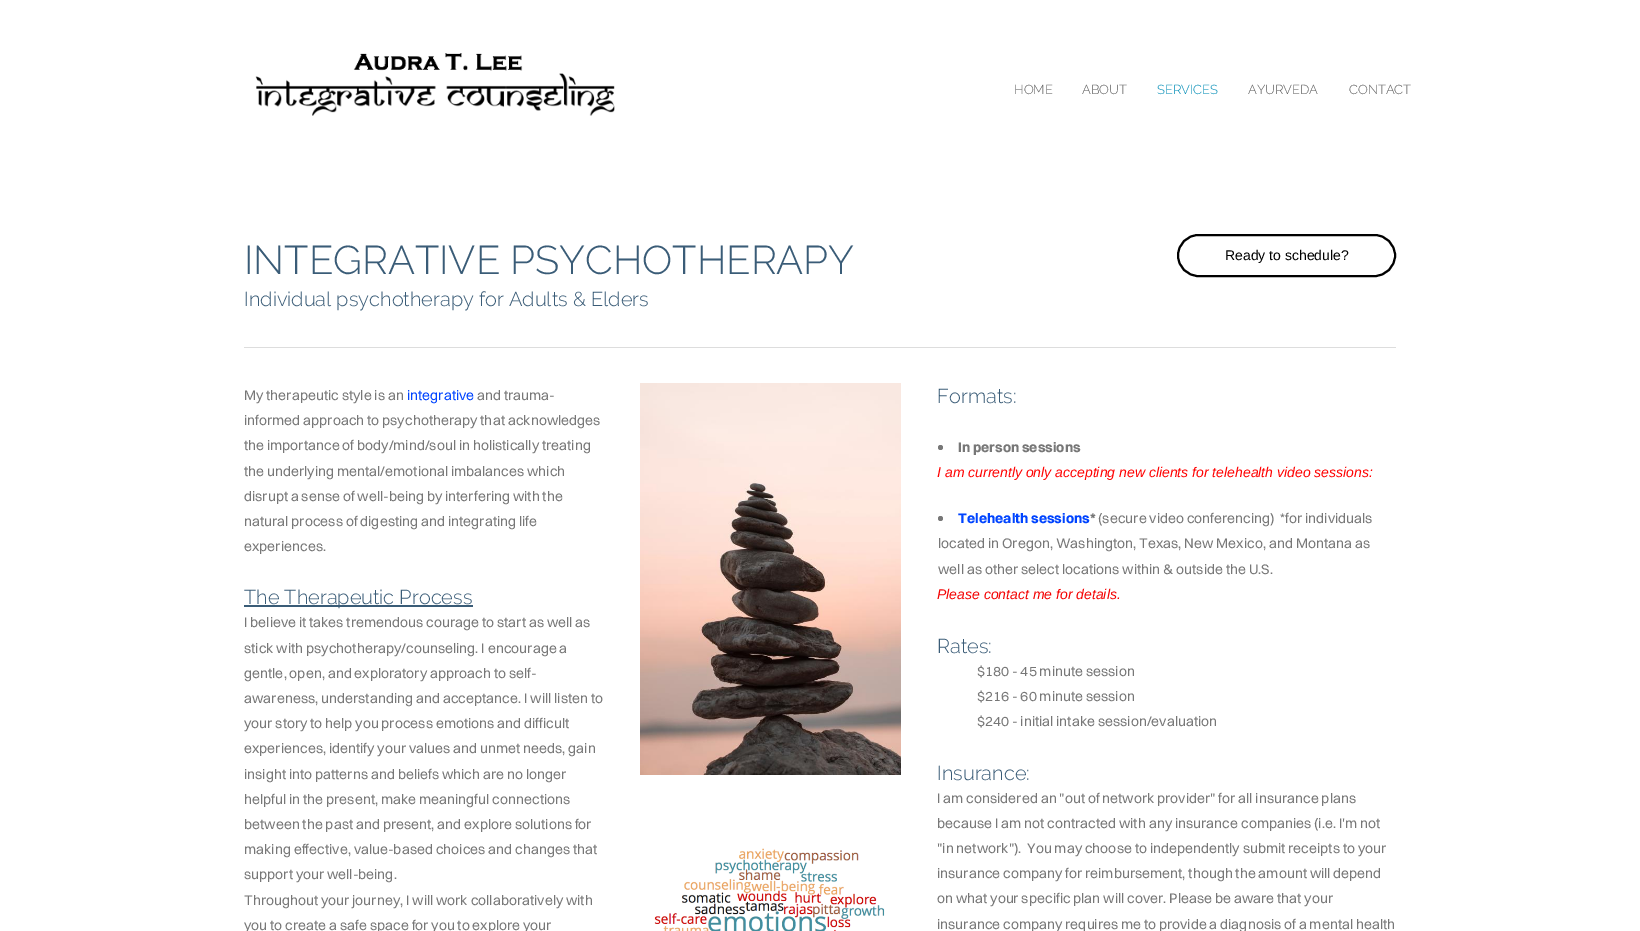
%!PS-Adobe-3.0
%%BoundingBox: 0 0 1640 931
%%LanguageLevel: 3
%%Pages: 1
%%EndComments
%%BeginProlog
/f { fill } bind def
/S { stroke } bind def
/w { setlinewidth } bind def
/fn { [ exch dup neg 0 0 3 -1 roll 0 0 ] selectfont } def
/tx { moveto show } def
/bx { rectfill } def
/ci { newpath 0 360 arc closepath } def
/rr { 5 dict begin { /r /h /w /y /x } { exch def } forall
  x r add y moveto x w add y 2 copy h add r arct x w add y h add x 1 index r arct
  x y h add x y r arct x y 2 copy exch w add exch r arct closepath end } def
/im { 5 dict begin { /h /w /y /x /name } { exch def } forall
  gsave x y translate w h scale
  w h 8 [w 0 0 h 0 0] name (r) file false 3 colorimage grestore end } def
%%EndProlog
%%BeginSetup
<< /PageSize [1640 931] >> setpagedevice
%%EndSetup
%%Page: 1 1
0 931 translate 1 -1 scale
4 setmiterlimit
1 setgray
0 0 1640 931 bx
(image0.raw) 255 53 360 63 im
/Raleway-Light 13 fn
0.365 setgray
(HOME) 1014 94 tx
(ABOUT) 1082 94 tx
0 0.549 0.714 setrgbcolor
(SERVICES) 1157 94 tx
0.365 setgray
(AYURVEDA) 1248 94 tx
(CONTACT) 1349 94 tx
/Raleway-Light 40 fn
0.227 0.361 0.467 setrgbcolor
(INTEGRATIVE PSYCHOTHERAPY) 244 274 tx
/Raleway-Light 20 fn
(Individual psychotherapy for Adults & Elders) 244 306 tx
0 setgray
2 w
1178 235 217 41 20.5 rr S
/LiberationSans-Regular 14 fn
(Ready to schedule?) 1225 260 tx
0.867 setgray
244 347 1152 1 bx
/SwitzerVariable-Regular 14 fn
0.467 setgray
(My therapeutic style is an) 244 400 tx
0 0.267 1 setrgbcolor
(integrative) 407 400 tx
0.467 setgray
(and trauma-) 477 400 tx
(informed approach to psychotherapy that acknowledges) 244 425 tx
(the importance of body/mind/soul in holistically treating) 244 450 tx
(the underlying mental/emotional imbalances which) 244 476 tx
(disrupt a sense of well-being by interfering with the) 244 501 tx
(natural process of digesting and integrating life) 244 526 tx
(experiences.) 244 551 tx
0.227 0.361 0.467 setrgbcolor
244 605 229 2 bx
/Raleway-Light 20 fn
(The Therapeutic Process) 244 604 tx
/SwitzerVariable-Regular 14 fn
0.467 setgray
(I believe it takes tremendous courage to start as well as) 244 627 tx
(stick with psychotherapy/counseling. I encourage a) 244 653 tx
(gentle, open, and exploratory approach to self-) 244 678 tx
(awareness, understanding and acceptance. I will listen to) 244 703 tx
(your story to help you process emotions and difficult) 244 728 tx
(experiences, identify your values and unmet needs, gain) 244 753 tx
(insight into patterns and beliefs which are no longer) 244 779 tx
(helpful in the present, make meaningful connections) 244 804 tx
(between the past and present, and explore solutions for) 244 829 tx
(making effective, value-based choices and changes that) 244 854 tx
(support your well-being.) 244 879 tx
(Throughout your journey, I will work collaboratively with) 244 905 tx
(you to create a safe space for you to explore your) 244 930 tx
(image1.raw) 640 383 261 392 im
(image2.raw) 654 848 231 83 im
/Raleway-Light 20 fn
0.227 0.361 0.467 setrgbcolor
(Formats:) 937 403 tx
0.467 setgray
940.5 447.5 2.5 ci f
/SwitzerVariable-Bold 14 fn
(In person sessions) 958 452 tx
/LiberationSans-Italic 14 fn
1 0.012 0.012 setrgbcolor
(I am currently only accepting new clients for telehealth video sessions:) 937 477 tx
0.467 setgray
940.5 518.5 2.5 ci f
/SwitzerVariable-Bold 14 fn
0 0.267 1 setrgbcolor
(Telehealth sessions) 958 523 tx
0.467 setgray
(*) 1090 523 tx
/SwitzerVariable-Regular 14 fn
(\(secure video conferencing\)  *for individuals) 1098 523 tx
(located in Oregon, Washington, Texas, New Mexico, and Montana as) 938 548 tx
(well as other select locations within & outside the U.S.) 938 574 tx
/LiberationSans-Italic 14 fn
0.957 0.012 0.012 setrgbcolor
(Please contact me for details.) 937 599 tx
/Raleway-Light 20 fn
0.227 0.361 0.467 setrgbcolor
(Rates:) 937 653 tx
/SwitzerVariable-Regular 14 fn
0.467 setgray
($180 - 45 minute session) 977 676 tx
($216 - 60 minute session) 977 701 tx
($240 - initial intake session/evaluation) 977 726 tx
/Raleway-Light 20 fn
0.227 0.361 0.467 setrgbcolor
(Insurance:) 937 780 tx
/SwitzerVariable-Regular 14 fn
0.467 setgray
(I am considered an "out of network provider" for all insurance plans) 937 803 tx
(because I am not contracted with any insurance companies \(i.e. I'm not) 937 828 tx
("in network"\).  You may choose to independently submit receipts to your) 937 853 tx
(insurance company for reimbursement, though the amount will depend) 937 878 tx
(on what your specific plan will cover. Please be aware that your) 937 903 tx
(insurance company requires me to provide a diagnosis of a mental health) 937 929 tx
showpage
%%EOF
